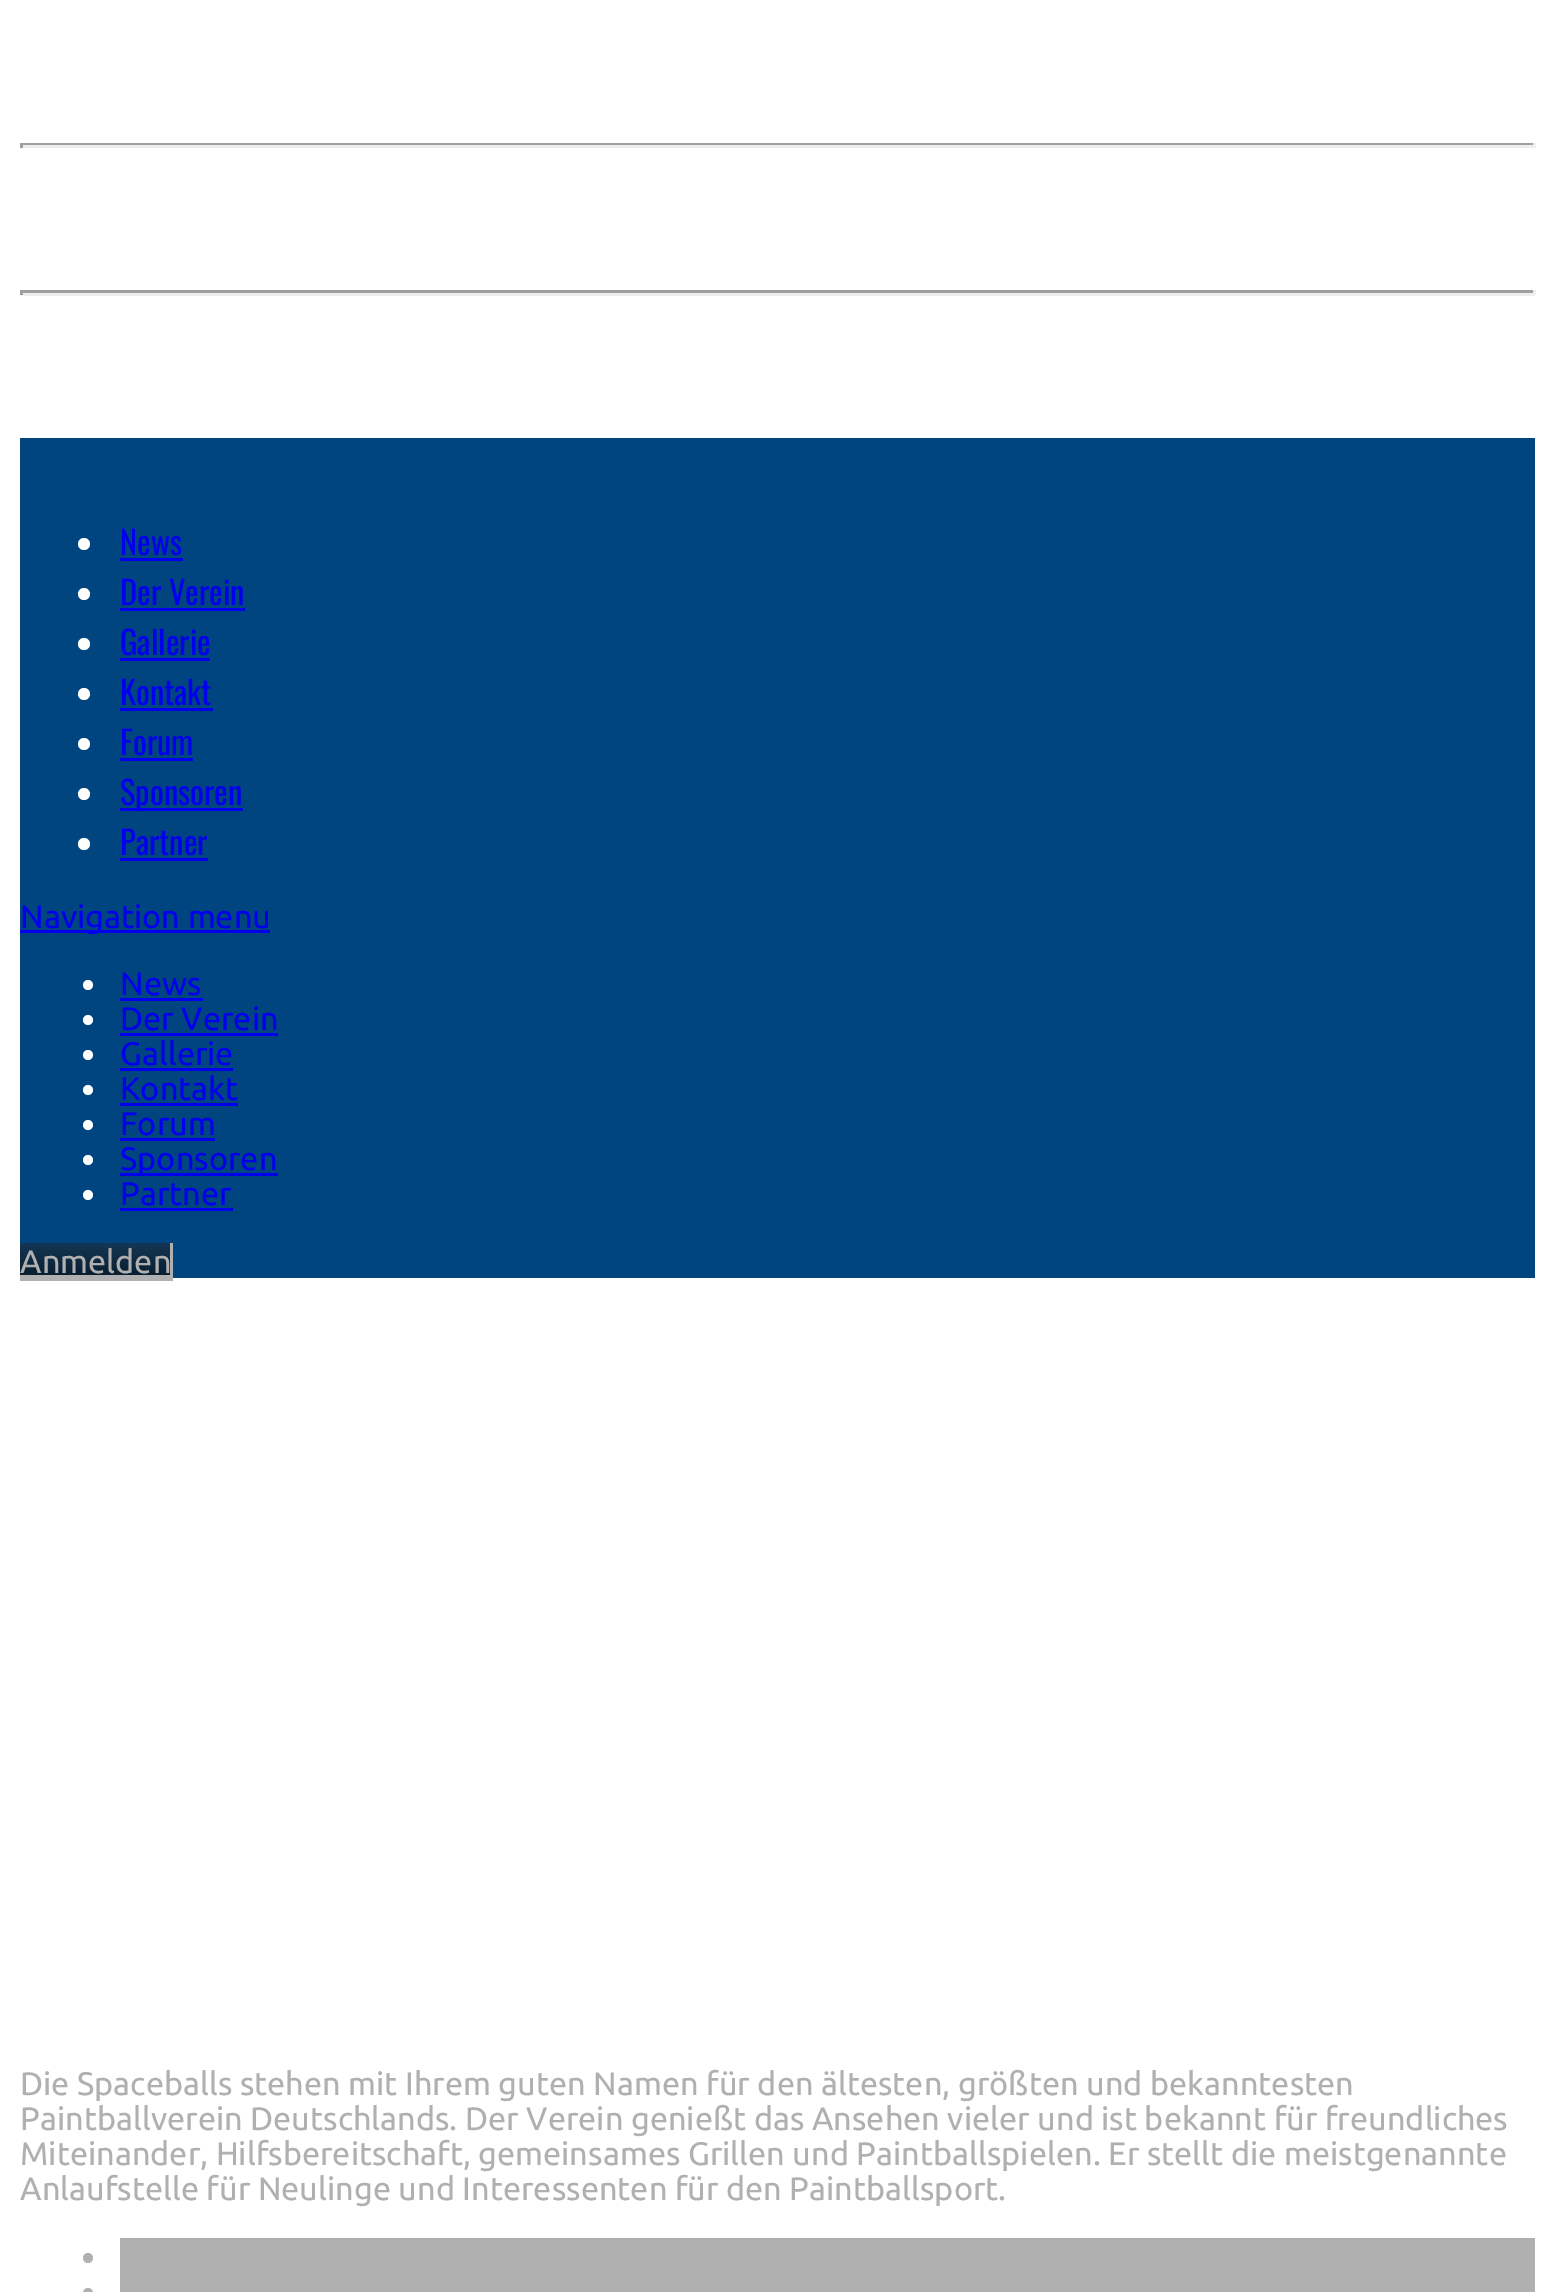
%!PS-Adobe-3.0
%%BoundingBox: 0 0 1553 2292
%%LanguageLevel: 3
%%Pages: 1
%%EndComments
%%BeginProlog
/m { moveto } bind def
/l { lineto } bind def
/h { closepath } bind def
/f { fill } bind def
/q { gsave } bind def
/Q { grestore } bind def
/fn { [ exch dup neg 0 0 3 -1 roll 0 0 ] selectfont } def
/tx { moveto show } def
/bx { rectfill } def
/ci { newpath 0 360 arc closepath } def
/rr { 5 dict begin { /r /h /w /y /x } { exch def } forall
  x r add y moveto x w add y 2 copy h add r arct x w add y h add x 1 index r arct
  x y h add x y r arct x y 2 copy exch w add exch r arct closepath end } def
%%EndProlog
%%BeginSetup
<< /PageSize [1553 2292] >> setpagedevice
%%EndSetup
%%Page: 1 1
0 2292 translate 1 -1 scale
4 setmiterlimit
1 setgray
0 0 1553 2292 bx
0.624 setgray
20 143 1515 2 bx
0.933 setgray
1533 143 3 5 bx
20 145 1515 3 bx
0.624 setgray
20 143 3 5 bx
20 290 1515 3 bx
0.933 setgray
1533 290 3 5 bx
20 293 1515 3 bx
0.624 setgray
20 290 3 5 bx
0 0.267 0.502 setrgbcolor
20 438 1515 840 bx
1 setgray
84 544 6 ci f
/Oswald-Regular 32.5 fn
0 0 0.933 setrgbcolor
(News) 120 555 tx
120 558 63 3 bx
1 setgray
84 594 6 ci f
0 0 0.933 setrgbcolor
(Der Verein) 120 605 tx
120 608 125 3 bx
1 setgray
84 644 6 ci f
0 0 0.933 setrgbcolor
(Gallerie) 120 655 tx
120 658 90 3 bx
1 setgray
84 694 6 ci f
0 0 0.933 setrgbcolor
(Kontakt) 120 705 tx
120 708 93 3 bx
1 setgray
84 744 6 ci f
0 0 0.933 setrgbcolor
(Forum) 120 755 tx
120 758 73 3 bx
1 setgray
84 794 6 ci f
0 0 0.933 setrgbcolor
120 808 123 3 bx
(Sponsoren) 120 805 tx
1 setgray
84 844 6 ci f
0 0 0.933 setrgbcolor
(Partner) 120 855 tx
120 858 88 3 bx
20 930 250 3 bx
/Ubuntu-Regular 32.5 fn
(Navigation menu) 20 928 tx
1 setgray
88 985 5 ci f
0 0 0.933 setrgbcolor
(News) 120 995 tx
120 998 83 3 bx
1 setgray
88 1020 5 ci f
0 0 0.933 setrgbcolor
(Der Verein) 120 1030 tx
120 1033 158 3 bx
1 setgray
88 1055 5 ci f
0 0 0.933 setrgbcolor
(Gallerie) 120 1065 tx
120 1068 113 3 bx
1 setgray
88 1090 5 ci f
0 0 0.933 setrgbcolor
(Kontakt) 120 1100 tx
120 1103 118 3 bx
1 setgray
88 1125 5 ci f
0 0 0.933 setrgbcolor
(Forum) 120 1135 tx
120 1138 95 3 bx
1 setgray
88 1160 5 ci f
0 0 0.933 setrgbcolor
120 1173 158 3 bx
(Sponsoren) 120 1170 tx
1 setgray
88 1195 5 ci f
0 0 0.933 setrgbcolor
(Partner) 120 1205 tx
120 1208 113 3 bx
q 20 1243 m 170 1243 l 170 1275 l 20 1275 l h clip newpath
<< /ShadingType 2 /ColorSpace /DeviceRGB /Coords [20 1278 20 1243] /Extend [true true] /Function << /FunctionType 2 /Domain [0 1] /C0 [0.031 0.114 0.184] /C1 [0.078 0.212 0.333] /N 1 >> >> shfill Q
0.69 setgray
(Anmelden) 20 1273 tx
170 1243 3 37 bx
20 1278 153 3 bx
20 1275 150 3 bx
(Die Spaceballs stehen mit Ihrem guten Namen für den ältesten, größten und bekanntesten) 20 2095 tx
(Paintballverein Deutschlands. Der Verein genießt das Ansehen vieler und ist bekannt für freundliches) 20 2130 tx
(Miteinander, Hilfsbereitschaft, gemeinsames Grillen und Paintballspielen. Er stellt die meistgenannte) 20 2165 tx
(Anlaufstelle für Neulinge und Interessenten für den Paintballsport.) 20 2200 tx
120 2238 1415 54 bx
88 2258 5 ci f
83 2288 10 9 5 rr f
showpage
%%EOF
